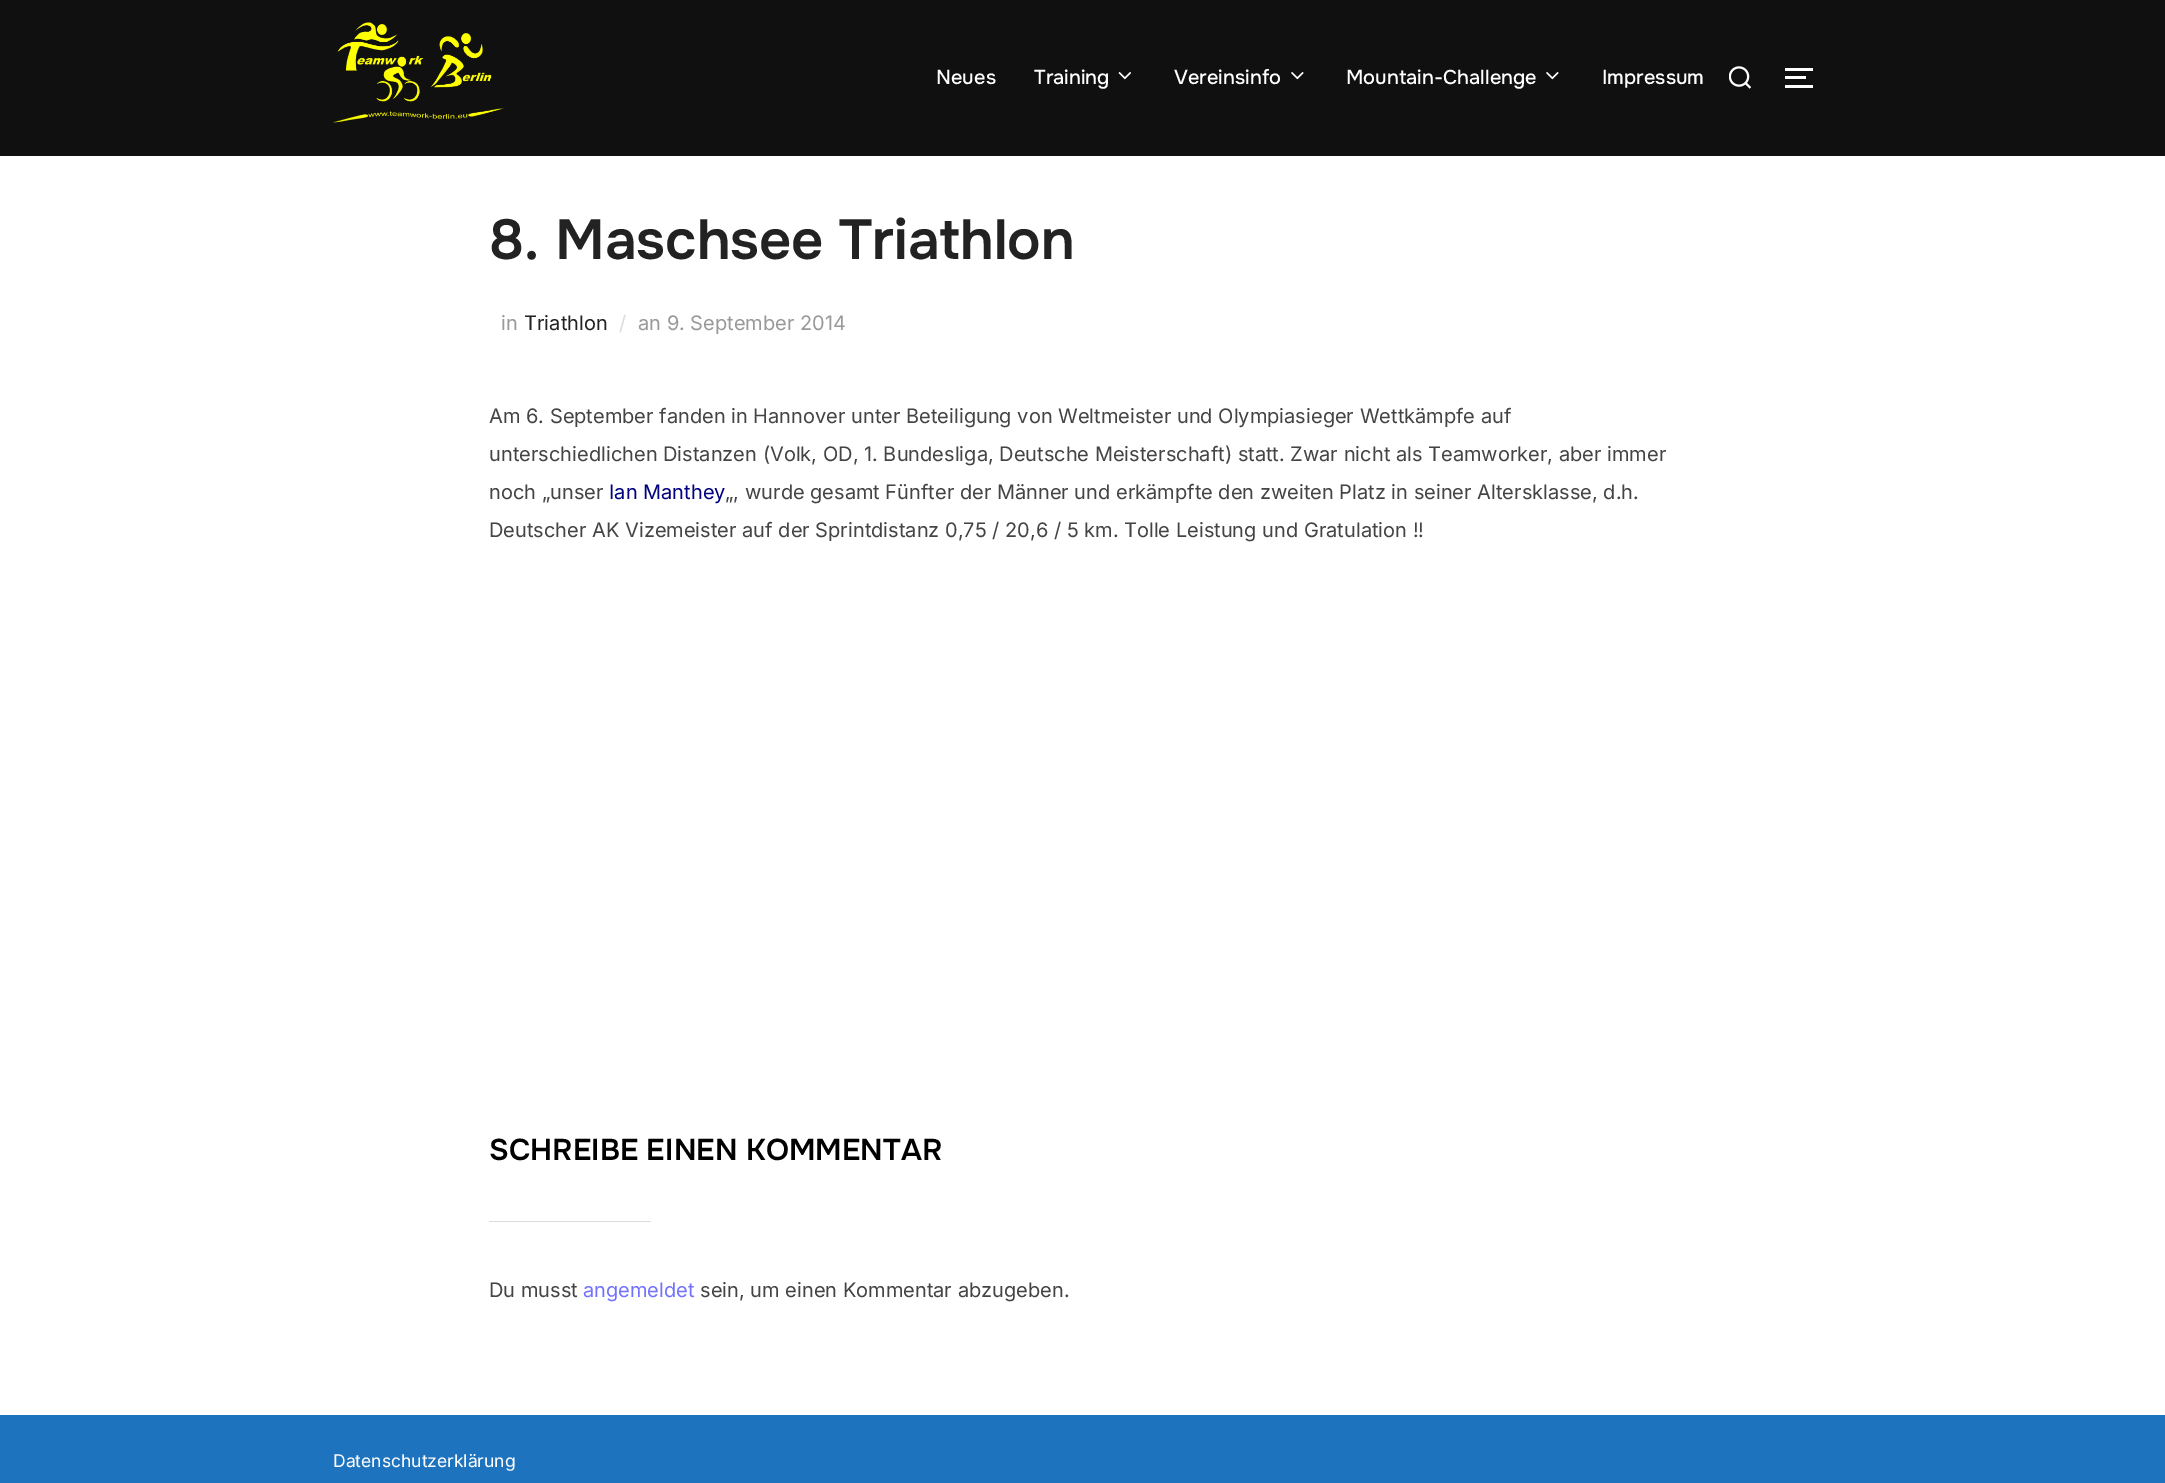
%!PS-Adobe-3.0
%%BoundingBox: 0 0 2165 1483
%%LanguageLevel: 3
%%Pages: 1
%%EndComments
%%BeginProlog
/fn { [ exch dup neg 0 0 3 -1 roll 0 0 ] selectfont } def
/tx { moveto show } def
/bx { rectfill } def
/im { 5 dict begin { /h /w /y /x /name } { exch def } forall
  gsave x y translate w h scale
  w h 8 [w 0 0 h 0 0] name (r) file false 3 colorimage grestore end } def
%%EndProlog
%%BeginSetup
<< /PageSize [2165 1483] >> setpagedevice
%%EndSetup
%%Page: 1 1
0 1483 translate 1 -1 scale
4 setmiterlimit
1 setgray
0 0 2165 1483 bx
0.063 setgray
0 0 2165 156 bx
(image0.raw) 333 22 171 101 im
/Onest-Medium 20 fn
1 setgray
(Neues) 936 84 tx
(Training) 1034 84 tx
(image1.raw) 1118 72 13 8 im
(Vereinsinfo) 1174 84 tx
(image2.raw) 1291 72 13 8 im
(Mountain-Challenge) 1346 84 tx
(image2.raw) 1546 72 13 8 im
(Impressum) 1602 84 tx
(image3.raw) 1729 66 22 23 im
1785 68 28 3 bx
1785 76 21 3 bx
1785 85 28 3 bx
/Onest-SemiBold 56.25 fn
0.133 setgray
(8. Maschsee Triathlon) 489 259 tx
/Inter-Regular 20 fn
0.6 setgray
(in) 501 330 tx
0.133 setgray
(Triathlon) 524 330 tx
0.859 0.867 0.867 setrgbcolor
(/) 619 330 tx
0.6 setgray
(an 9. September 2014) 638 330 tx
0.267 setgray
(Am 6. September fanden in Hannover unter Beteiligung von Weltmeister und Olympiasieger Wettkämpfe auf) 489 423 tx
(unterschiedlichen Distanzen \(Volk, OD, 1. Bundesliga, Deutsche Meisterschaft\) statt. Zwar nicht als Teamworker, aber immer) 489 461 tx
(noch „unser) 489 499 tx
0 0 0.502 setrgbcolor
(Ian Manthey) 609 499 tx
0.267 setgray
(„, wurde gesamt Fünfter der Männer und erkämpfte den zweiten Platz in seiner Altersklasse, d.h.) 725 499 tx
(Deutscher AK Vizemeister auf der Sprintdistanz 0,75 / 20,6 / 5 km. Tolle Leistung und Gratulation !!) 489 537 tx
/Onest-SemiBold 30 fn
0 setgray
(SCHREIBE EINEN KOMMENTAR) 489 1160 tx
0.859 setgray
489 1221 162 1 bx
/Inter-Regular 20 fn
0.267 setgray
(Du musst) 489 1297 tx
0.447 0.447 1 setrgbcolor
(angemeldet) 583 1297 tx
0.267 setgray
(sein, um einen Kommentar abzugeben.) 700 1297 tx
0.118 0.451 0.745 setrgbcolor
0 1415 2165 68 bx
/Inter-Regular 17.5 fn
1 setgray
(Datenschutzerklärung) 333 1467 tx
showpage
%%EOF
